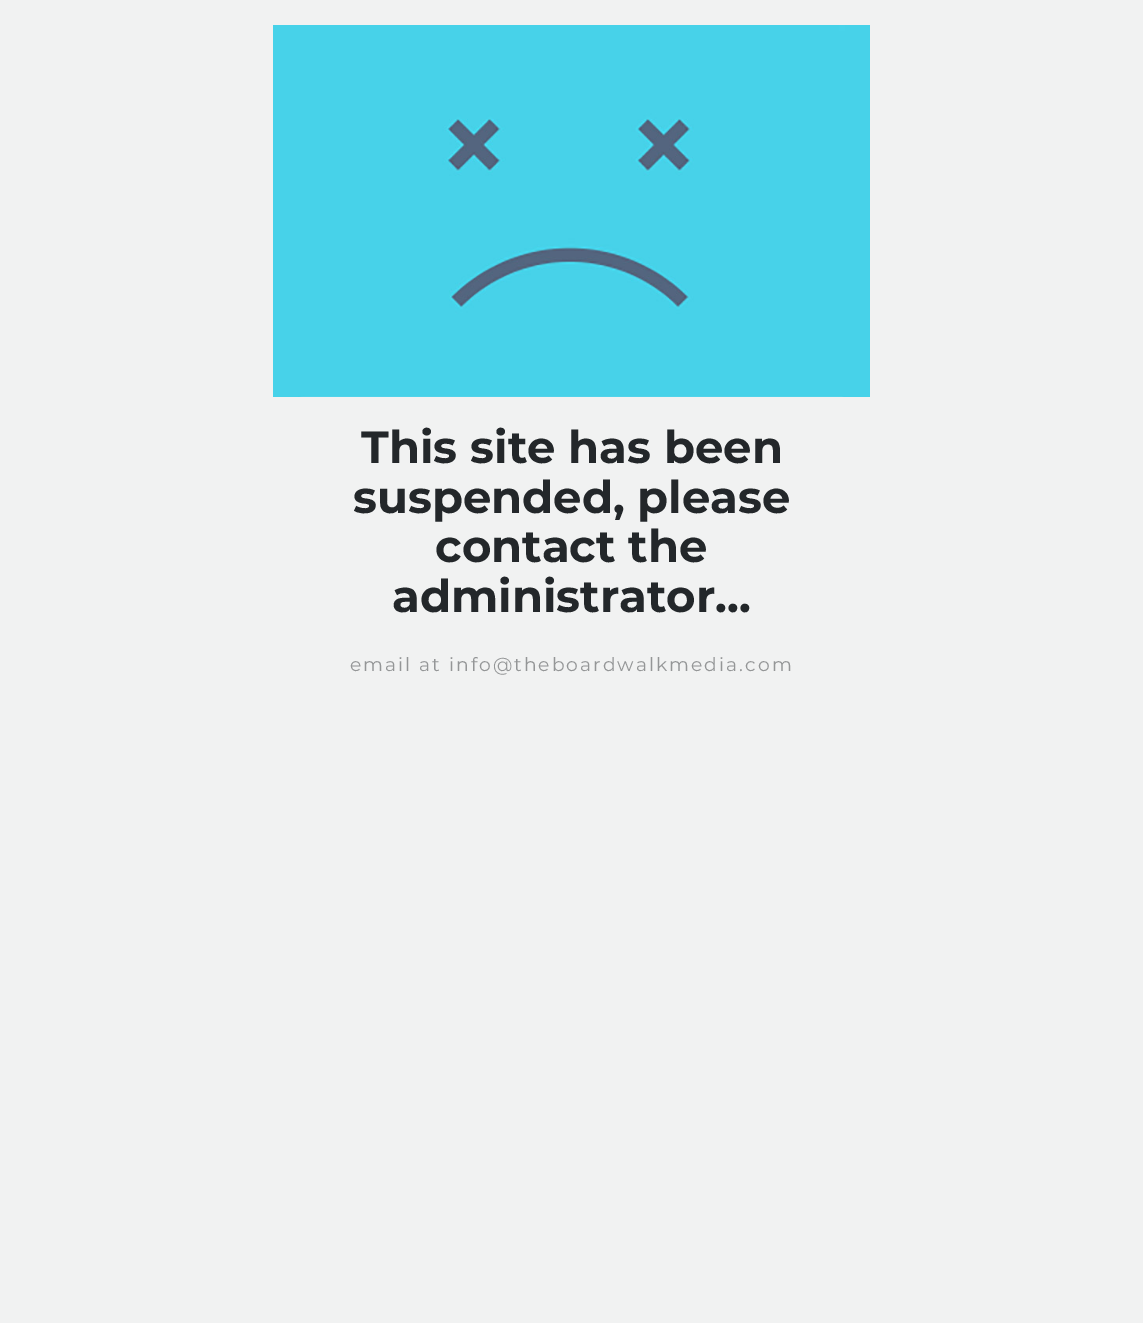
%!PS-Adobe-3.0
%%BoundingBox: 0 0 1143 1323
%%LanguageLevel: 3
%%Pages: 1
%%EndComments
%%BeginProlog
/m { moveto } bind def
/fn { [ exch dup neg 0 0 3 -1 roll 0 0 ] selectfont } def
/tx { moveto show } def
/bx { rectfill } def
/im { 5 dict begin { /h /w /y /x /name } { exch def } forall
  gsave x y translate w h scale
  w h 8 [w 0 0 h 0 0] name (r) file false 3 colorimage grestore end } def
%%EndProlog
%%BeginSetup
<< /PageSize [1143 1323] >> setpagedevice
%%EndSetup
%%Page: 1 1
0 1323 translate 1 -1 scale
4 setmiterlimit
0.945 0.949 0.949 setrgbcolor
0 0 1143 1323 bx
(image0.raw) 273 25 597 372 im
/Montserrat-Thin 45 fn
0.137 0.153 0.165 setrgbcolor
(This site has been) 361 463 tx
(suspended, please) 353 513 tx
(contact the) 435 562 tx
(administrator...) 392 612 tx
/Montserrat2-Thin 18.75 fn
0.58 0.588 0.592 setrgbcolor
350 671 m 2 0 (email at info@theboardwalkmedia.com) ashow
showpage
%%EOF
